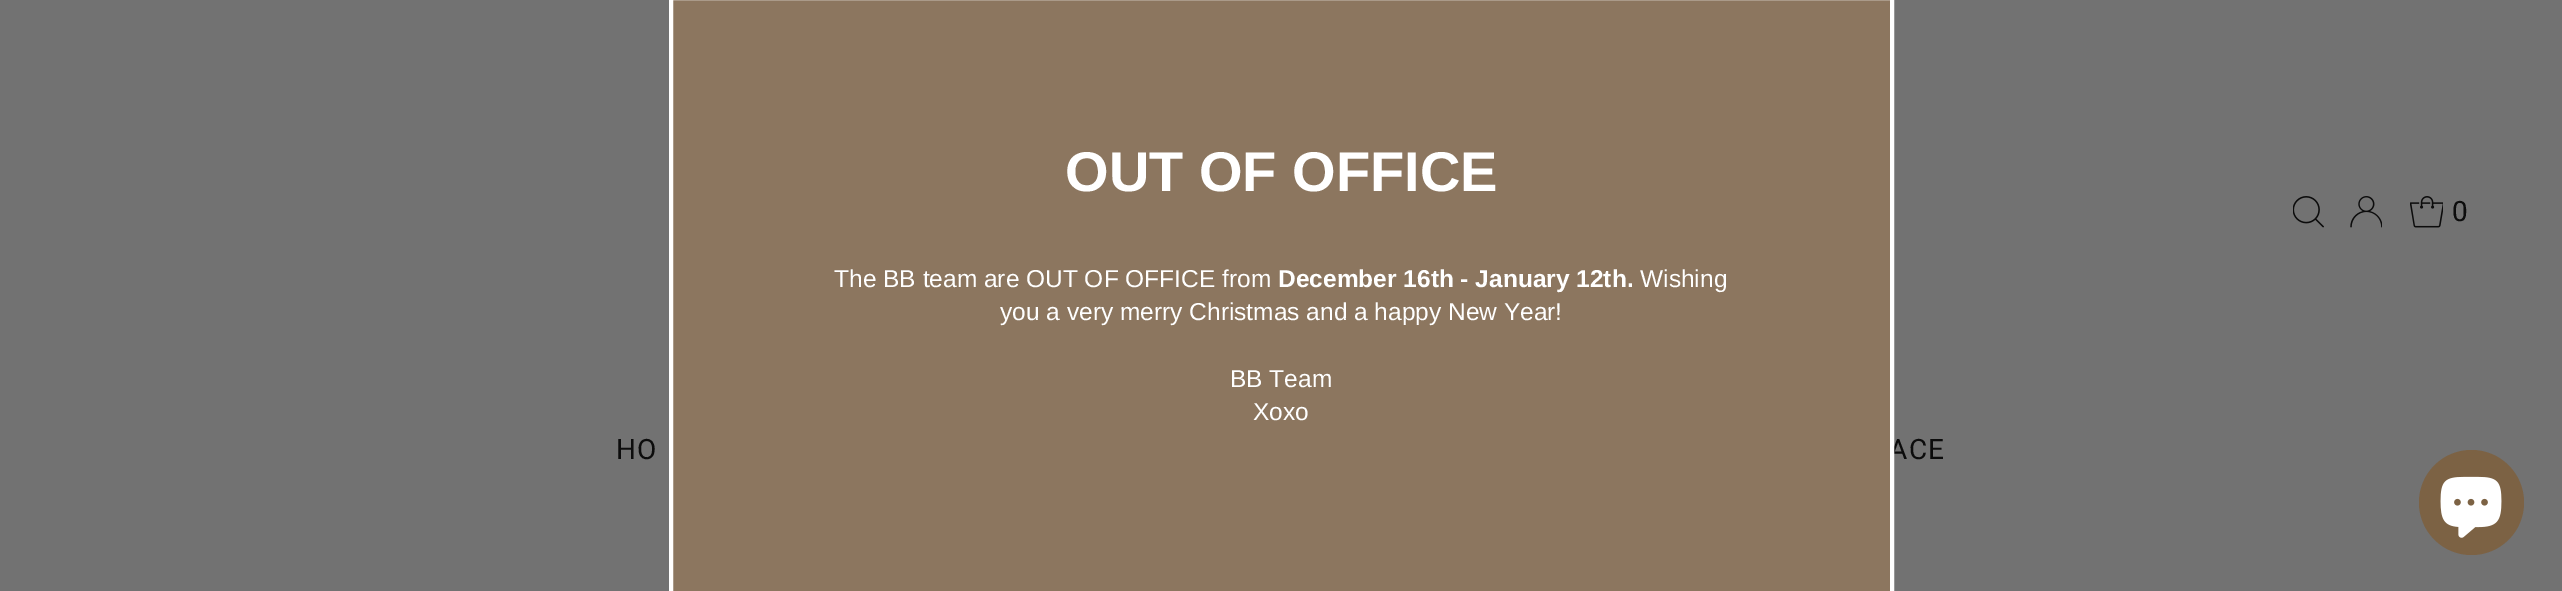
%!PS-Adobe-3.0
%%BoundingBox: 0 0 2562 591
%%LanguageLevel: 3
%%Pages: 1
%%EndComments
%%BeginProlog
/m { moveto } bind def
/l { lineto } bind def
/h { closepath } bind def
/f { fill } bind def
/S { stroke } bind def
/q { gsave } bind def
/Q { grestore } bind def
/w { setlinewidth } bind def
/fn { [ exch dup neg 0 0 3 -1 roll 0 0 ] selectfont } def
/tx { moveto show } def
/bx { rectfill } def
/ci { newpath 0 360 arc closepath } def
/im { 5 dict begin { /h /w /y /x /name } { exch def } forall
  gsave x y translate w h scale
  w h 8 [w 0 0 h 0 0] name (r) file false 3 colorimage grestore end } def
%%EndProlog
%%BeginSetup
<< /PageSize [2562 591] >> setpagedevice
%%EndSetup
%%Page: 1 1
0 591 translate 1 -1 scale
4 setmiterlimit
0.447 setgray
0 0 2562 591 bx
/Roboto-Regular 28 fn
0.047 setgray
1889 459 m 1.5 0 (ACE) ashow
0.549 0.463 0.373 setrgbcolor
671 -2 m 1892 -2 l 1892 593 l 671 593 l h q f Q
1 setgray
4 w
S
/LiberationSans-Bold 56 fn
(OUT OF OFFICE) 1065 191 tx
/LiberationSans-Regular 24.5 fn
(The BB team are OUT OF OFFICE from) 834 287 tx
/LiberationSans-Bold 24.5 fn
(December 16th - January 12th.) 1278 287 tx
/LiberationSans-Regular 24.5 fn
(Wishing) 1640 287 tx
(you a very merry Christmas and a happy New Year!) 1000 320 tx
(BB Team) 1230 387 tx
(Xoxo) 1253 420 tx
(image0.raw) 2293 196 31 32 im
(image1.raw) 2350 196 32 32 im
(image2.raw) 2410 196 33 32 im
/Roboto-Regular 28 fn
0.047 setgray
(0) 2452 221 tx
616 459 m 1.5 0 (HO) ashow
0.486 0.384 0.267 setrgbcolor
2471.5 502.5 52.5 ci f
(image3.raw) 2440 476 62 62 im
showpage
%%EOF
